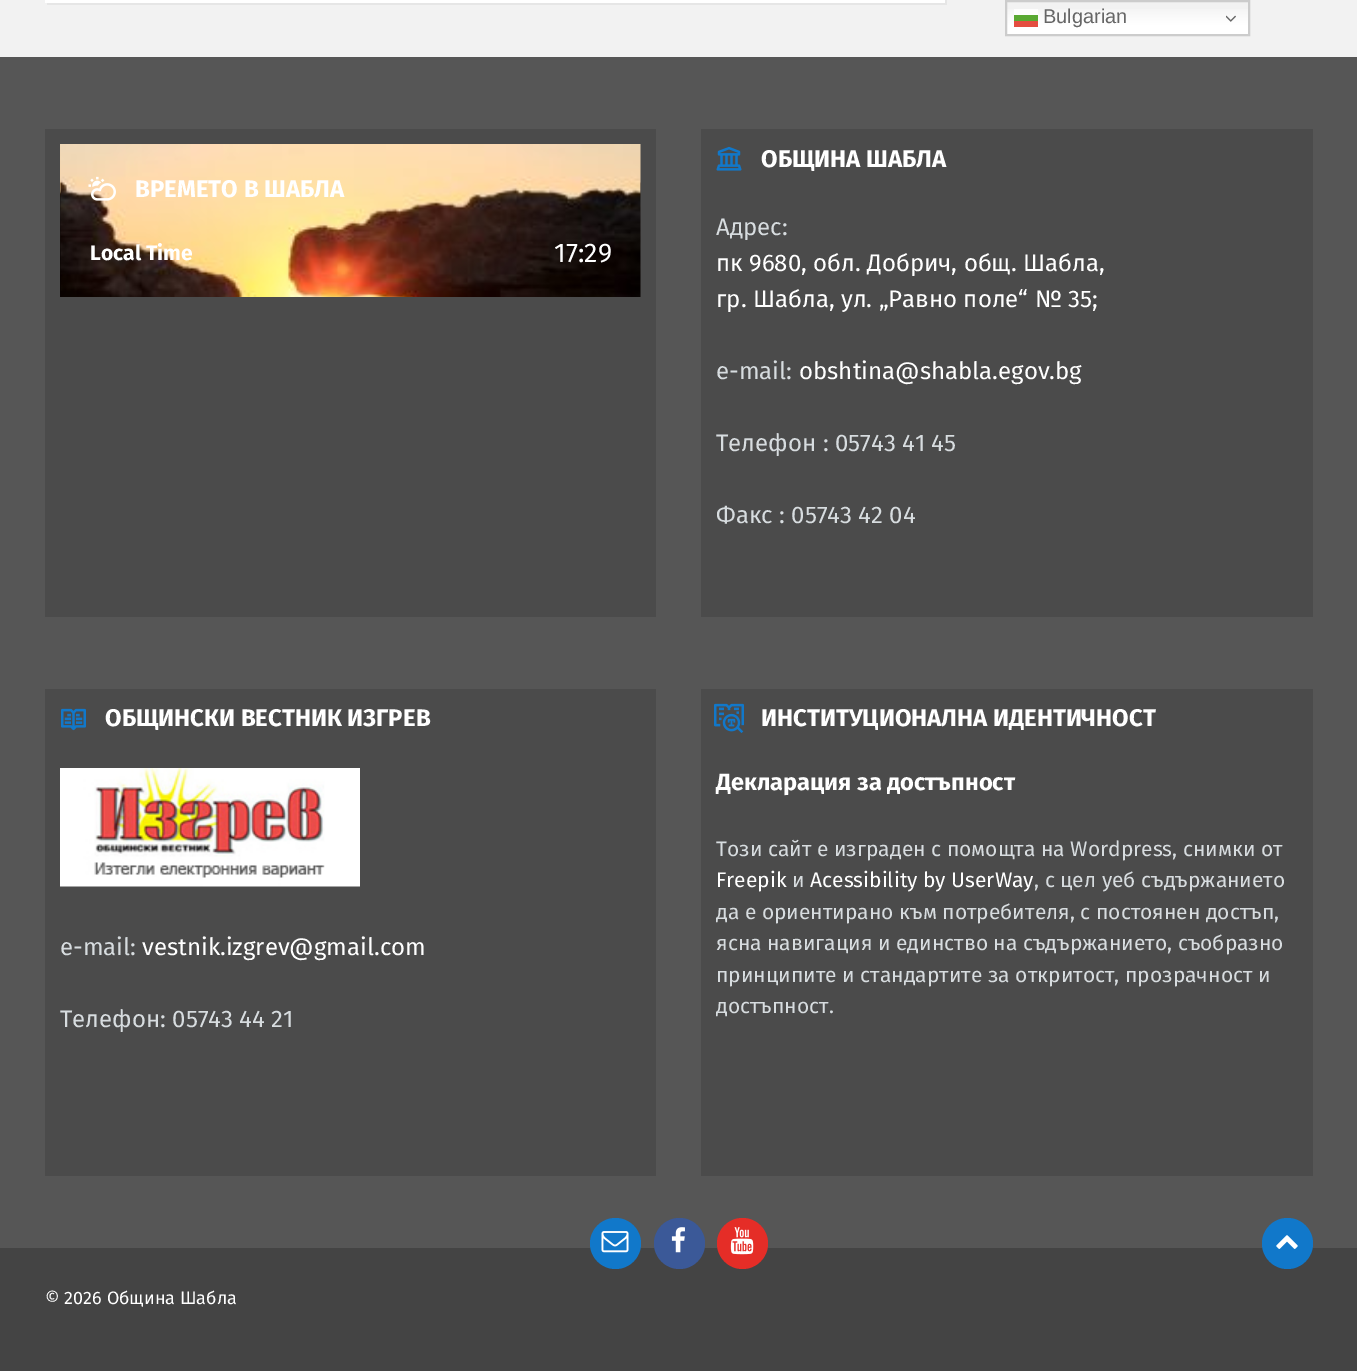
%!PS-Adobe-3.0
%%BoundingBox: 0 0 1357 1371
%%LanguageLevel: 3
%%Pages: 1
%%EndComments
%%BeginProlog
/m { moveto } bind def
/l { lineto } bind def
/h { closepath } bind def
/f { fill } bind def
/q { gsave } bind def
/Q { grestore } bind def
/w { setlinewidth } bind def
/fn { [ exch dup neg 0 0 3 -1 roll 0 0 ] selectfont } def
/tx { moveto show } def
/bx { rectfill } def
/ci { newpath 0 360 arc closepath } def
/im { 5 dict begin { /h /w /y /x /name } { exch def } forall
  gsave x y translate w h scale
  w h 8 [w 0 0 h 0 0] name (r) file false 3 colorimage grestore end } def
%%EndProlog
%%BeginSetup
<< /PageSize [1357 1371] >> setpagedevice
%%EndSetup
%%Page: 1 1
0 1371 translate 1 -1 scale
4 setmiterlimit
0.949 setgray
0 0 1357 1371 bx
q 1007 9 m 1248 9 l 1248 34 l 1007 34 l h clip newpath
<< /ShadingType 2 /ColorSpace /DeviceRGB /Coords [1127 0 1127 36] /Extend [true true] /Function << /FunctionType 3 /Domain [0 1] /Functions [<< /FunctionType 2 /Domain [0 1] /C0 [0.937 0.937 0.937] /C1 [1 1 1] /N 1 >> << /FunctionType 2 /Domain [0 1] /C0 [1 1 1] /C1 [1 1 1] /N 1 >>] /Bounds [0.7] /Encode [0 1 0 1] >> >> shfill Q
q 1014 15 m 1038 15 l 1038 21 l 1014 21 l h clip newpath
<< /ShadingType 2 /ColorSpace /DeviceRGB /Coords [1127 0 1127 36] /Extend [true true] /Function << /FunctionType 3 /Domain [0 1] /Functions [<< /FunctionType 2 /Domain [0 1] /C0 [0.341 0.651 0.188] /C1 [0.353 0.663 0.2] /N 1 >> << /FunctionType 2 /Domain [0 1] /C0 [0.353 0.663 0.2] /C1 [0.353 0.663 0.2] /N 1 >>] /Bounds [0.7] /Encode [0 1 0 1] >> >> shfill Q
q 1014 9 m 1038 9 l 1038 15 l 1014 15 l h clip newpath
<< /ShadingType 2 /ColorSpace /DeviceRGB /Coords [1127 0 1127 36] /Extend [true true] /Function << /FunctionType 3 /Domain [0 1] /Functions [<< /FunctionType 2 /Domain [0 1] /C0 [0.988 0.988 0.988] /C1 [1 1 1] /N 1 >> << /FunctionType 2 /Domain [0 1] /C0 [1 1 1] /C1 [1 1 1] /N 1 >>] /Bounds [0.7] /Encode [0 1 0 1] >> >> shfill Q
0.8 setgray
2 w
1006 1 243 34 rectstroke
/LiberationSans-Regular 20 fn
0.4 setgray
(Bulgarian) 1043 23 tx
(image0.raw) 1226 15 10 7 im
0.894 0.302 0.251 setrgbcolor
1014 21 24 6 bx
0.902 setgray
47 3 m 47 5 l 947 5 l 947 -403 l 945 -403 l 945 3 l h f
1 setgray
45 0 900 3 bx
0.337 setgray
0 57 1357 1191 bx
0.294 setgray
45 129 611 488 bx
(image1.raw) 60 144 581 153 im
(image2.raw) 88 176 28 25 im
/FiraSans-Bold 24 fn
1 setgray
(ВРЕМЕТО В ШАБЛА) 135 197 tx
/FiraSans-Bold 21 fn
(Local Time) 90 260 tx
/FiraSans-Regular 27 fn
(17:29) 554 262 tx
0.294 setgray
701 129 612 488 bx
(image3.raw) 716 146 26 25 im
/FiraSans-Bold 24 fn
1 setgray
(ОБЩИНА ШАБЛА) 761 167 tx
/FiraSans-Regular 24 fn
0.843 0.863 0.875 setrgbcolor
(Адрес:) 716 235 tx
1 setgray
(пк 9680, обл. Добрич, общ. Шабла,) 716 271 tx
(гр. Шабла, ул. „Равно поле“ № 35;) 716 307 tx
0.843 0.863 0.875 setrgbcolor
(e-mail:) 716 379 tx
1 setgray
(obshtina@shabla.egov.bg) 799 379 tx
0.843 0.863 0.875 setrgbcolor
(Телефон : 05743 41 45) 716 451 tx
(Факс : 05743 42 04) 716 523 tx
0.294 setgray
45 689 611 487 bx
(image4.raw) 61 708 25 23 im
/FiraSans-Bold 24 fn
1 setgray
(ОБЩИНСКИ ВЕСТНИК ИЗГРЕВ) 105 726 tx
(image5.raw) 60 768 300 119 im
/FiraSans-Regular 24 fn
0.843 0.863 0.875 setrgbcolor
(e-mail:) 60 955 tx
1 setgray
(vestnik.izgrev@gmail.com) 142 955 tx
0.843 0.863 0.875 setrgbcolor
(Телефон: 05743 44 21) 60 1027 tx
0.294 setgray
701 689 612 487 bx
(image6.raw) 714 703 30 30 im
/FiraSans-Bold 24 fn
1 setgray
(ИНСТИТУЦИОНАЛНА ИДЕНТИЧНОСТ) 761 726 tx
/FiraSans-Bold 23.6 fn
(Декларация за достъпност) 716 790 tx
/FiraSans-Regular 21 fn
0.843 0.863 0.875 setrgbcolor
(Този сайт е изграден с помощта на Wordpress, снимки от) 716 856 tx
1 setgray
(Freepik) 716 887 tx
0.843 0.863 0.875 setrgbcolor
(и) 792 887 tx
1 setgray
(Acessibility by UserWay) 810 887 tx
0.843 0.863 0.875 setrgbcolor
(, с цел уеб съдържанието) 1034 887 tx
(да е ориентирано към потребителя, с постоянен достъп,) 716 919 tx
(ясна навигация и единство на съдържанието, съобразно) 716 950 tx
(принципите и стандартите за откритост, прозрачност и) 716 982 tx
(достъпност.) 716 1013 tx
0.267 setgray
0 1248 1357 123 bx
0.067 0.471 0.792 setrgbcolor
615.5 1243.5 25.5 ci f
(image7.raw) 601 1231 28 22 im
0.231 0.349 0.596 setrgbcolor
679.5 1243.5 25.5 ci f
(image8.raw) 671 1227 14 26 im
0.898 0.176 0.153 setrgbcolor
742.5 1243.5 25.5 ci f
(image9.raw) 730 1227 24 28 im
0.067 0.471 0.792 setrgbcolor
1287.5 1243.5 25.5 ci f
(image10.raw) 1276 1235 22 14 im
/FiraSans-Regular 18 fn
1 setgray
(© 2026 Община Шабла) 45 1304 tx
showpage
%%EOF
